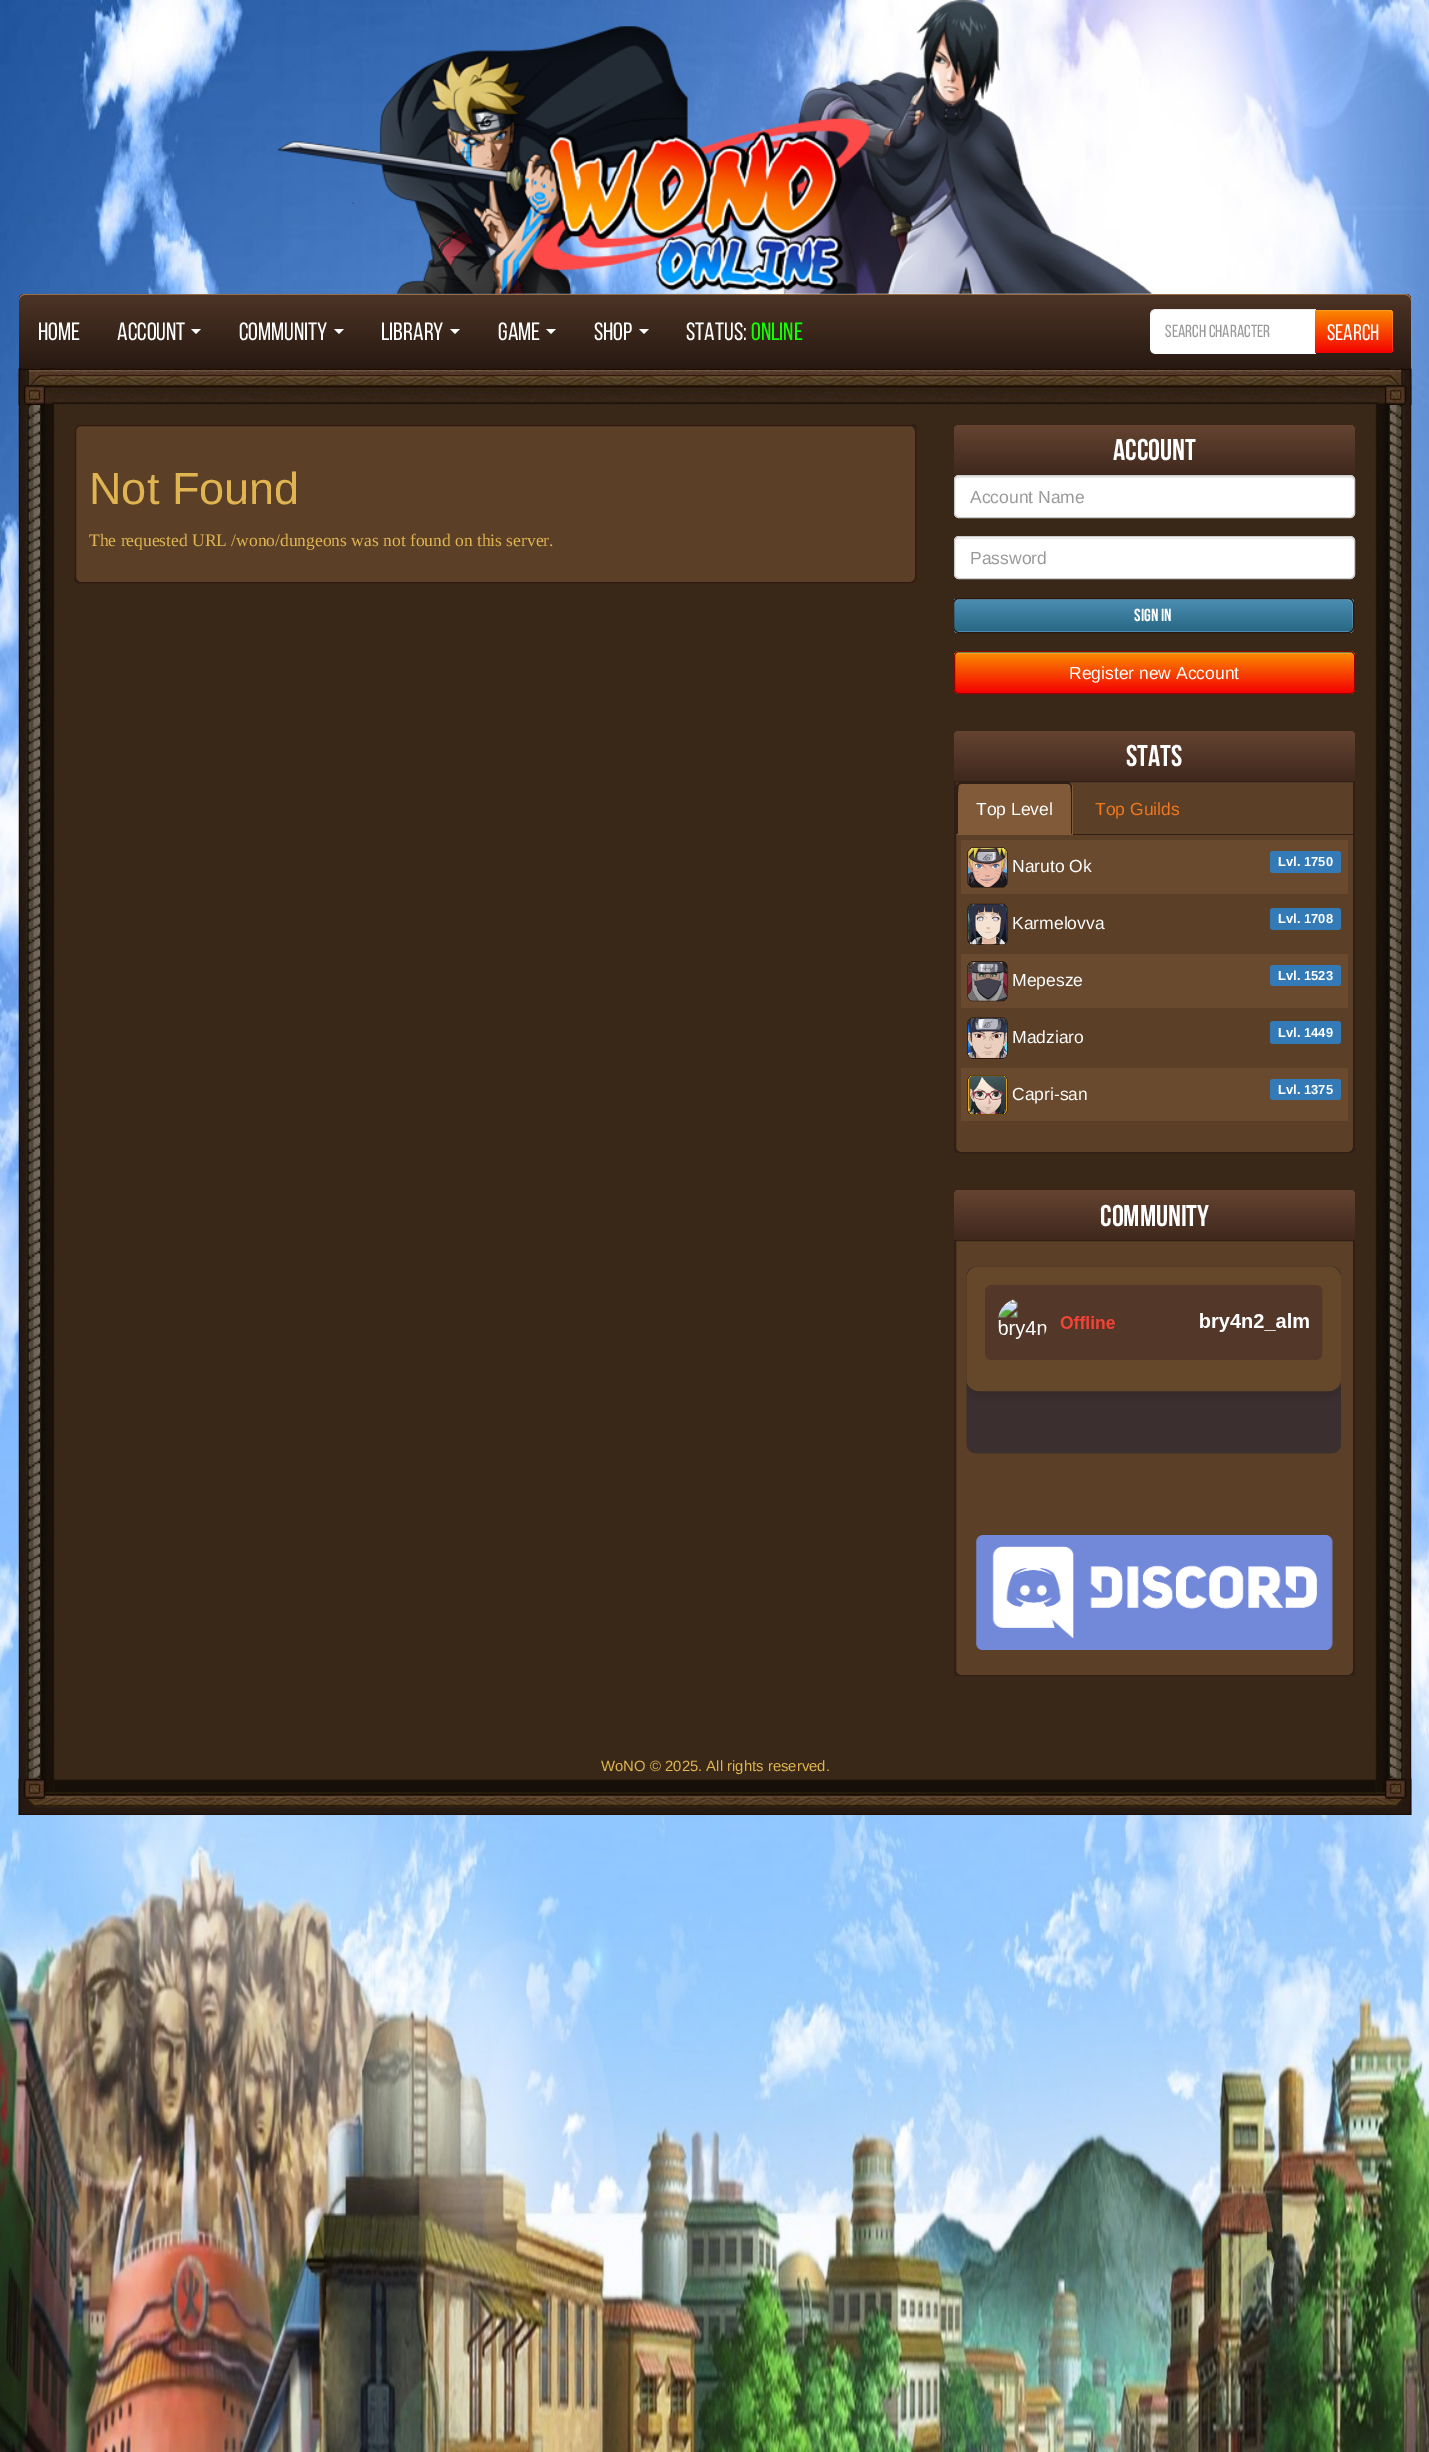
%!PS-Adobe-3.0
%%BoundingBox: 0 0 1429 2452
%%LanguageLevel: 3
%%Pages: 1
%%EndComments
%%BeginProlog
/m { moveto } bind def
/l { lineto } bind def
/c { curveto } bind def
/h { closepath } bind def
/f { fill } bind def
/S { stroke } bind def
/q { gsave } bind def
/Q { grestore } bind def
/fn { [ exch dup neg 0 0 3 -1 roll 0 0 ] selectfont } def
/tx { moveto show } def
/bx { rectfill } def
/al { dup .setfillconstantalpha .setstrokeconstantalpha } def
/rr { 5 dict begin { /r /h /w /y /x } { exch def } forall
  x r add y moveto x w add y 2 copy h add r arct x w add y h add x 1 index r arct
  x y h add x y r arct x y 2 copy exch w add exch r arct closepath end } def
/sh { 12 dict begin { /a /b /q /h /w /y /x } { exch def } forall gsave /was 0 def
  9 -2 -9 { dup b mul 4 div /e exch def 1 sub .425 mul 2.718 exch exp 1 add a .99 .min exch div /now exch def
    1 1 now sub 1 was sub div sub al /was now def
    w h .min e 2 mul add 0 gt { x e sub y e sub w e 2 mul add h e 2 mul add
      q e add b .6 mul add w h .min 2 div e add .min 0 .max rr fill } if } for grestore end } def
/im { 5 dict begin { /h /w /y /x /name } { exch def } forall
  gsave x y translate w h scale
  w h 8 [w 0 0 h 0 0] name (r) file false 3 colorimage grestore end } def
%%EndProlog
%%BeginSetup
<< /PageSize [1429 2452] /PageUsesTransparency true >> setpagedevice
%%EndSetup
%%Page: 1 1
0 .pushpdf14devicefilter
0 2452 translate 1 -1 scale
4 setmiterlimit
1 setgray
0 0 1429 2452 bx
(image0.raw) 0 0 1429 2452 im
(image1.raw) 277 0 876 294 im
0.098 0.063 0.035 setrgbcolor
19 364 m 19 368 l 19 371 22 374 25 374 c 1405 374 l 1408 374 1411 371 1411 368 c 1411 364 l 1410 367 1408 369 1405 369 c 25 369 l 22 369 20 367 19 364 c h f
q 19 294 1392 75 6 rr clip newpath
<< /ShadingType 2 /ColorSpace /DeviceRGB /Coords [19 294 19 369] /Extend [true true] /Function << /FunctionType 2 /Domain [0 1] /C0 [0.302 0.204 0.145] /C1 [0.153 0.098 0.071] /N 1 >> >> shfill Q
0.596 0.431 0.275 setrgbcolor
25 295 m 1405 295 l 1408 295 1411 298 1411 301 c 1411 297 1409 294 1405 294 c 25 294 l 21 294 19 297 19 301 c 19 298 22 295 25 295 c h f
/BebasNeue-Regular 25 fn
1 setgray
(Home) 38 340 tx
(Account) 117 340 tx
191 329 m 201 329 l 196 334 l h f
(Community) 239 340 tx
334 329 m 344 329 l 339 334 l h f
(Library) 381 340 tx
450 329 m 460 329 l 455 334 l h f
(Game) 498 340 tx
546 329 m 556 329 l 551 334 l h f
(Shop) 594 340 tx
639 329 m 649 329 l 644 334 l h f
(STATUS:) 686 340 tx
0.071 1 0 setrgbcolor
(ONLINE) 751 340 tx
1 setgray
1156 309 m 1316 309 l 1316 354 l 1156 354 l 1152.5 354 1150 351.5 1150 348 c 1150 315 l 1150 311.5 1152.5 309 1156 309 c h f
0.07 al
0 setgray
1156 310 m 1316 310 l 1316 309 l 1156 309 l 1153 309 1150 312 1150 315 c 1150 316 l 1150 313 1153 310 1156 310 c h f
/BebasNeue-Regular 17.5 fn
1 al
0.6 setgray
(Search Character) 1165 337 tx
0 setgray
1315 311 78 43 4 0.5 0.07 sh
q 1315 310 m 1389 310 l 1391 310 1393 312 1393 314 c 1393 349 l 1393 351 1391 353 1389 353 c 1315 353 l h clip newpath
<< /ShadingType 2 /ColorSpace /DeviceRGB /Coords [1315 310 1315 353] /Extend [true true] /Function << /FunctionType 2 /Domain [0 1] /C0 [0.98 0.541 0] /C1 [0.961 0 0] /N 1 >> >> shfill Q
0.15 al
1 setgray
1315 311 m 1389 311 l 1393 311 1392 319 1392 321 c 1392 352 l 1392 351 1393 350 1393 349 c 1393 314 l 1393 312 1391 310 1389 310 c 1315 310 l h f
/BebasNeue-Regular 22.5 fn
1 al
(Search) 1327 340 tx
0.224 0.157 0.094 setrgbcolor
55 405 1320 1374 bx
(image2.raw) 18 368 1394 1447 im
0.169 0.11 0.078 setrgbcolor
82 424 m 80 424 78 425 77 427 c 78 426 80 425 81 425 c 910 425 l 913 425 916 428 916 431 c 916 576 l 916 578 916 579 915 580 c 917 579 918 577 918 575 c 918 430 l 918 427 915 424 912 424 c h f
77 427 m 75 428 74 430 74 432 c 74 578 l 74 581 77 584 80 584 c 909 584 l 911 584 913 583 914 581 c 913 582 912 582 910 582 c 81 582 l 78 582 75 580 75 576 c 75 431 l 75 430 76 428 77 427 c h f
0.243 0.141 0.063 setrgbcolor
76 580 m 77 582 79 584 82 584 c 912 584 l 915 584 918 581 918 578 c 918 432 l 918 429 916 427 914 426 c 915 427 916 429 916 431 c 916 576 l 916 580 913 582 910 582 c 81 582 l 79 582 78 582 76 580 c h f
80 424 m 78 424 76 425 75 427 c 74 430 l 74 576 l 76 579 l 75 576 l 75 431 l 75 428 78 425 81 425 c 910 425 l 911 425 913 425 914 426 c 912 425 911 424 909 424 c h f
0.357 0.251 0.153 setrgbcolor
75.5 425.5 840 157 5.5 rr q f Q
0.169 0.11 0.078 setrgbcolor
S
/LiberationSans-Regular 45 fn
0.875 0.706 0.318 setrgbcolor
(Not Found) 89 504 tx
/LiberationSerif-Regular 17.5 fn
(The requested URL /wono/dungeons was not found on this server.) 89 546 tx
q 960 425 m 1349 425 l 1352.5 425 1355 427.5 1355 431 c 1355 475 l 954 475 l 954 431 l 954 427.5 956.5 425 960 425 c h clip newpath
<< /ShadingType 2 /ColorSpace /DeviceRGB /Coords [954 425 954 475] /Extend [true true] /Function << /FunctionType 2 /Domain [0 1] /C0 [0.396 0.267 0.192] /C1 [0.247 0.157 0.114] /N 1 >> >> shfill Q
/BebasNeue-Bold 30 fn
1 setgray
(Account) 1113 460 tx
954 475 401 43 5 rr f
0.925 setgray
959 478 m 1350 478 l 1352 478 1354 479 1354 481 c 1354 478 1353 476 1350 476 c 959 476 l 956 476 955 478 955 481 c 955 479 957 478 959 478 c h f
0.8 setgray
954.5 475.5 400 42 4.5 rr S
/LiberationSans-Regular 17.5 fn
0.6 setgray
(Account Name) 970 503 tx
1 setgray
954 536 401 43 5 rr f
0.925 setgray
959 539 m 1350 539 l 1352 539 1354 540 1354 542 c 1354 540 1352 538 1350 538 c 959 538 l 957 538 955 540 955 542 c 955 540 957 539 959 539 c h f
0.8 setgray
954.5 536.5 400 42 4.5 rr S
0.6 setgray
(Password) 970 564 tx
q
953 598 401 35 6 rr clip newpath
q 954 599 m 1354 599 l 1354 631 l 954 631 l h clip newpath
<< /ShadingType 2 /ColorSpace /DeviceRGB /Coords [1153 599 1153 631] /Extend [true true] /Function << /FunctionType 2 /Domain [0 1] /C0 [0.298 0.557 0.706] /C1 [0.161 0.412 0.522] /N 1 >> >> shfill Q
q 954 631 m 1354 631 l 1354 633 l 954 633 l h clip newpath
<< /ShadingType 2 /ColorSpace /DeviceRGB /Coords [1153 631 1153 664] /Extend [true true] /Function << /FunctionType 2 /Domain [0 1] /C0 [0.298 0.557 0.706] /C1 [0.161 0.412 0.522] /N 1 >> >> shfill Q
Q
0.15 al
1 setgray
959 600 m 1348 600 l 1354 600 1352 610 1352 613 c 1352 629 l 1353 628 1353 627 1353 626 c 1353 604 l 1353 601 1351 599 1348 599 c 959 599 l 956 599 954 601 954 604 c 954 605 l 954 602 956 600 959 600 c h f
q
954 425 401 269 rectclip
1 al
0.157 0.102 0.075 setrgbcolor
953.5 598.5 400 34 5.5 rr S
Q
/BebasNeue-Bold 17.5 fn
1 al
(Sign in) 1134 621 tx
0.361 0.722 0.361 setrgbcolor
954 651 401 43 5 rr f
q
954 651 401 43 5 rr clip newpath
q 954 653 m 1355 653 l 1355 693 l 954 693 l h clip newpath
<< /ShadingType 2 /ColorSpace /DeviceRGB /Coords [1154 653 1154 693] /Extend [true true] /Function << /FunctionType 2 /Domain [0 1] /C0 [0.98 0.541 0] /C1 [0.961 0 0] /N 1 >> >> shfill Q
Q
0.15 al
1 setgray
959 654 m 1350 654 l 1352 654 1354 655 1354 658 c 1354 655 1353 653 1350 653 c 959 653 l 956 653 955 655 955 658 c 955 655 957 654 959 654 c h f
1 al
0.557 0.012 0.012 setrgbcolor
954.5 651.5 400 42 4.5 rr S
/LiberationSans-Regular 17.5 fn
1 setgray
(Register new Account) 1069 679 tx
q 960 731 m 1349 731 l 1352.5 731 1355 733.5 1355 737 c 1355 781 l 954 781 l 954 737 l 954 733.5 956.5 731 960 731 c h clip newpath
<< /ShadingType 2 /ColorSpace /DeviceRGB /Coords [954 731 954 781] /Extend [true true] /Function << /FunctionType 2 /Domain [0 1] /C0 [0.396 0.267 0.192] /C1 [0.247 0.157 0.114] /N 1 >> >> shfill Q
/BebasNeue-Bold 30 fn
(Stats) 1126 766 tx
0.188 0.122 0.09 setrgbcolor
956 781 m 1354 781 l 1354 1146 l 1354 1150 1351 1152 1348 1152 c 961 1152 l 958 1152 l 959 1153 961 1153 962 1153 c 1349 1153 l 1352 1153 1355 1150 1355 1147 c 1355 781 l h f
q
954 731 401 422 rectclip
954 783 m 954 1148 l 954 1151 957 1154 960 1154 c 1347 1154 l 1350 1154 1352 1152 1353 1150 c 1352 1151 1350 1152 1348 1152 c 961 1152 l 958 1152 955 1150 955 1146 c 955 783 l h f
956 1150 m 957 1152 959 1154 962 1154 c 1349 1154 l 1352 1154 1355 1151 1355 1148 c 1355 783 l 1354 783 l 1354 1146 l 1354 1150 1351 1152 1348 1152 c 961 1152 l 959 1152 958 1152 956 1150 c h f
Q
954 781 m 954 1147 l 954 1150 957 1153 960 1153 c 1347 1153 l 1349 1153 1350 1152 1351 1151 c 1350 1152 1349 1152 1348 1152 c 961 1152 l 958 1152 955 1150 955 1146 c 955 781 l 1353 781 l h f
0.357 0.251 0.153 setrgbcolor
955.5 781.5 m 1353.5 781.5 l 1353.5 1147 l 1353.5 1150 1351 1152.5 1348 1152.5 c 961 1152.5 l 958 1152.5 955.5 1150 955.5 1147 c h q f Q
0.188 0.122 0.09 setrgbcolor
S
1073 834 280 1 bx
0.506 0.357 0.224 setrgbcolor
961 783 m 1068 783 l 1071 783 1073 785 1073 788 c 1073 835 l 956 835 l 956 788 l 956 785 958 783 961 783 c h f
0.188 0.122 0.09 setrgbcolor
961 784 m 959 785 l 957 784 l 959 782 l 1069 782 l 1071 784 l 1070 785 l 1068 784 l h f
1071 784 m 1072 785 1072 787 1072 788 c 1072 834 l 1071 834 l 1071 828 1072 787 1070 785 c h f
956 835 m 956 786 l 957 784 l 959 785 l 957 787 958 827 958 833 c h f
/LiberationSans-Regular 17.5 fn
1 setgray
(Top Level) 976 815 tx
0.937 0.467 0.122 setrgbcolor
(Top Guilds) 1095 815 tx
0.412 0.29 0.18 setrgbcolor
961 840 387 54 bx
(image3.raw) 967 847 41 41 im
1 setgray
(Naruto Ok) 1012 872 tx
0.2 0.478 0.718 setrgbcolor
1270 851 71 22 3 rr f
/LiberationSans-Bold 13 fn
1 setgray
(Lvl. 1750) 1278 866 tx
(image4.raw) 967 903 41 42 im
/LiberationSans-Regular 17.5 fn
(Karmelovva) 1012 929 tx
0.2 0.478 0.718 setrgbcolor
1270 908 71 22 3 rr f
/LiberationSans-Bold 13 fn
1 setgray
(Lvl. 1708) 1278 923 tx
0.412 0.29 0.18 setrgbcolor
961 954 387 54 bx
(image5.raw) 967 961 41 41 im
/LiberationSans-Regular 17.5 fn
1 setgray
(Mepesze) 1012 986 tx
0.2 0.478 0.718 setrgbcolor
1270 965 71 21 3 rr f
/LiberationSans-Bold 13 fn
1 setgray
(Lvl. 1523) 1278 980 tx
(image6.raw) 967 1017 41 42 im
/LiberationSans-Regular 17.5 fn
(Madziaro) 1012 1043 tx
0.2 0.478 0.718 setrgbcolor
1270 1021 71 23 3 rr f
/LiberationSans-Bold 13 fn
1 setgray
(Lvl. 1449) 1278 1037 tx
0.412 0.29 0.18 setrgbcolor
961 1068 387 53 bx
(image7.raw) 967 1075 41 40 im
/LiberationSans-Regular 17.5 fn
1 setgray
(Capri-san) 1012 1100 tx
0.2 0.478 0.718 setrgbcolor
1270 1079 71 21 3 rr f
/LiberationSans-Bold 13 fn
1 setgray
(Lvl. 1375) 1278 1094 tx
q 960 1190 m 1349 1190 l 1352.5 1190 1355 1192.5 1355 1196 c 1355 1240 l 954 1240 l 954 1196 l 954 1192.5 956.5 1190 960 1190 c h clip newpath
<< /ShadingType 2 /ColorSpace /DeviceRGB /Coords [954 1190 954 1240] /Extend [true true] /Function << /FunctionType 2 /Domain [0 1] /C0 [0.396 0.267 0.192] /C1 [0.247 0.157 0.114] /N 1 >> >> shfill Q
/BebasNeue-Bold 30 fn
(Community) 1100 1226 tx
0.188 0.122 0.09 setrgbcolor
1349 1676 m 1352 1676 1355 1673 1355 1670 c 1355 1240 l 1354 1240 l 1354 1670 l 1354 1673 1352 1675 1349 1676 c h f
q
954 1190 401 486 rectclip
954 1241 m 954 1672 l 954 1675 957 1678 960 1678 c 1347 1678 l 1350 1678 1352 1676 1353 1673 c 1352 1675 1350 1676 1348 1676 c 961 1676 l 958 1676 955 1673 955 1670 c 955 1241 l h f
956 1674 m 957 1676 959 1678 962 1678 c 1349 1678 l 1352 1678 1355 1675 1355 1672 c 1355 1241 l 1354 1241 l 1354 1670 l 1354 1673 1351 1676 1348 1676 c 961 1676 l 959 1676 957 1675 956 1674 c h f
Q
954 1240 m 954 1670 l 954 1673 956 1676 959 1676 c 957 1675 955 1673 955 1670 c 955 1240 l h f
0.357 0.251 0.153 setrgbcolor
955.5 1240.5 m 1353.5 1240.5 l 1353.5 1670 l 1353.5 1673 1351 1675.5 1348 1675.5 c 961 1675.5 l 958 1675.5 955.5 1673 955.5 1670 c h q f Q
0.188 0.122 0.09 setrgbcolor
S
(image8.raw) 966 1266 375 188 im
(image9.raw) 976 1535 357 115 im
/LiberationSans-Regular 14.9 fn
0.875 0.706 0.318 setrgbcolor
(WoNO © 2025. All rights reserved.) 601 1771 tx
.poppdf14devicefilter showpage
%%EOF
